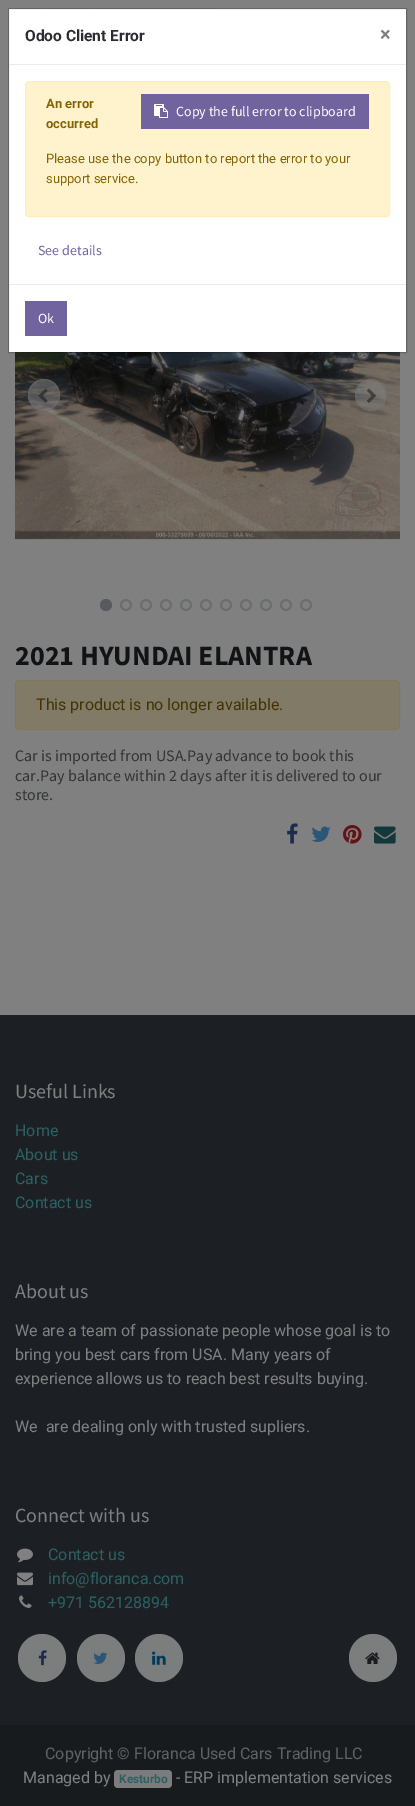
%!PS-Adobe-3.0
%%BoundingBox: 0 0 415 1806
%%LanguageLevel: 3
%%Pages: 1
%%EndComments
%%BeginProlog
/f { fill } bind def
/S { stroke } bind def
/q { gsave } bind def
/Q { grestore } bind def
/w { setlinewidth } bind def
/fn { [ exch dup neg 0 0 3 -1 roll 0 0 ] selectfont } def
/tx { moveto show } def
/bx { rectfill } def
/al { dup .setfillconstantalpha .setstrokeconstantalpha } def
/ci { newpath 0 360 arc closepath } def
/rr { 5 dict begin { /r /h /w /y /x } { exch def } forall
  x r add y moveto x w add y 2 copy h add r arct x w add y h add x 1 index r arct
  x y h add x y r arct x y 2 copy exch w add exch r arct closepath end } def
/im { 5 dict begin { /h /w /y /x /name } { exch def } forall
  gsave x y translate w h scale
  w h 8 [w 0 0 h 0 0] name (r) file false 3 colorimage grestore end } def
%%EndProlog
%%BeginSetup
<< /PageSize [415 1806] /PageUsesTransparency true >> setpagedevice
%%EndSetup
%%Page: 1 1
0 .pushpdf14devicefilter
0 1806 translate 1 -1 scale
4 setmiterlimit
0.502 setgray
0 0 415 1806 bx
1 setgray
9 9 397 343 bx
(image1.raw) 16 8 205 1 im
(image2.raw) 15 352 385 188 im
0.2 al
0 setgray
8.5 8.5 398 344 rectstroke
1 al
0.914 0.925 0.937 setrgbcolor
9 64 397 1 bx
/Roboto-Bold 15.5 fn
0.169 0.169 0.2 setrgbcolor
(Odoo Client Error) 25 41 tx
/Roboto-Bold 20 fn
0.502 setgray
(×) 380 41 tx
1 0.953 0.804 setrgbcolor
25.5 81.5 364 135 3.5 rr q f Q
1 0.933 0.729 setrgbcolor
S
/Roboto-Bold 13 fn
0.522 0.392 0.016 setrgbcolor
(An error) 46 108 tx
(occurred) 46 128 tx
0.443 0.388 0.62 setrgbcolor
141 94 228 35 bx
(image0.raw) 154 104 14 14 im
/SourceSansPro-Regular 14 fn
1 setgray
(Copy the full error to clipboard) 176 116 tx
/Roboto-Regular 13 fn
0.522 0.392 0.016 setrgbcolor
(Please use the copy button to report the error to your) 46 163 tx
(support service.) 46 183 tx
/SourceSansPro-Regular 14 fn
0.443 0.388 0.62 setrgbcolor
(See details) 38 255 tx
0.914 0.925 0.937 setrgbcolor
9 284 397 1 bx
0.443 0.388 0.62 setrgbcolor
25 301 42 35 bx
1 setgray
(Ok) 38 323 tx
0.5 al
0.502 setgray
44 395 16 ci f
0.404 0.416 0.427 setrgbcolor
44 395 15.5 ci S
1 al
(image3.raw) 38 388 10 15 im
0.5 al
0.502 setgray
371 395 16 ci f
0.404 0.416 0.427 setrgbcolor
371 395 15.5 ci S
1 al
(image4.raw) 366 388 10 15 im
0.341 0.357 0.373 setrgbcolor
106 605 5 ci q f Q
2 w
S
0.42 0.427 0.435 setrgbcolor
126 605 5 ci S
146 605 5 ci S
166 605 5 ci S
186 605 5 ci S
206 605 5 ci S
226 605 5 ci S
246 605 5 ci S
266 605 5 ci S
286 605 5 ci S
306 605 5 ci S
/SourceSansPro-Bold 28 fn
0.067 0.075 0.082 setrgbcolor
(2021 HYUNDAI ELANTRA) 15 665 tx
0.502 0.478 0.404 setrgbcolor
15.5 680.5 384 49 3.5 rr q f Q
0.502 0.467 0.365 setrgbcolor
1 w
S
/Roboto-Regular 16 fn
0.263 0.196 0.008 setrgbcolor
(This product is no longer available.) 36 710 tx
/SourceSansPro-Regular 16 fn
0.196 0.2 0.208 setrgbcolor
(Car is imported from USA.Pay advance to book this) 15 761 tx
(car.Pay balance within 2 days after it is delivered to our) 15 781 tx
(store.) 15 800 tx
(image5.raw) 287 823 11 21 im
(image6.raw) 311 826 20 16 im
(image7.raw) 343 825 19 19 im
(image8.raw) 374 826 22 18 im
0.11 0.122 0.137 setrgbcolor
0 1015 415 710 bx
/SourceSansPro-Regular 20 fn
0.502 setgray
(Useful Links) 15 1098 tx
/Roboto-Regular 16 fn
0.173 0.38 0.388 setrgbcolor
(Home) 15 1136 tx
(About us) 15 1160 tx
(Cars) 15 1184 tx
(Contact us) 15 1208 tx
/SourceSansPro-Regular 20 fn
0.502 setgray
(About us) 15 1298 tx
/Roboto-Regular 16 fn
(We are a team of passionate people whose goal is to) 15 1336 tx
(bring you best cars from USA. Many years of) 15 1360 tx
(experience allows us to reach best results buying.) 15 1384 tx
(We  are dealing only with trusted supliers.) 15 1432 tx
/SourceSansPro-Regular 20 fn
(Connect with us) 15 1522 tx
(image9.raw) 17 1548 16 15 im
/Roboto-Regular 16 fn
0.173 0.38 0.388 setrgbcolor
(Contact us) 48 1560 tx
(image10.raw) 17 1572 16 14 im
(info@floranca.com) 48 1584 tx
(image11.raw) 19 1595 13 13 im
(+971 562128894) 48 1608 tx
0.486 0.49 0.49 setrgbcolor
42 1658 24 ci f
(image12.raw) 38 1650 9 16 im
101 1658 24 ci f
(image13.raw) 93 1652 15 12 im
159 1658 24 ci f
(image14.raw) 152 1651 14 14 im
373 1658 24 ci f
(image15.raw) 365 1652 15 12 im
0.094 0.106 0.118 setrgbcolor
0 1725 415 81 bx
0.38 0.38 0.384 setrgbcolor
(Copyright © Floranca Used Cars Trading LLC) 45 1759 tx
0.502 setgray
(Managed by) 23 1783 tx
0.486 setgray
114 1770 58 18 4 rr f
/Roboto-Bold 12 fn
0.173 0.38 0.388 setrgbcolor
(Kesturbo) 119 1783 tx
/Roboto-Regular 16 fn
0.502 setgray
(- ERP implementation services) 176 1783 tx
.poppdf14devicefilter showpage
%%EOF
